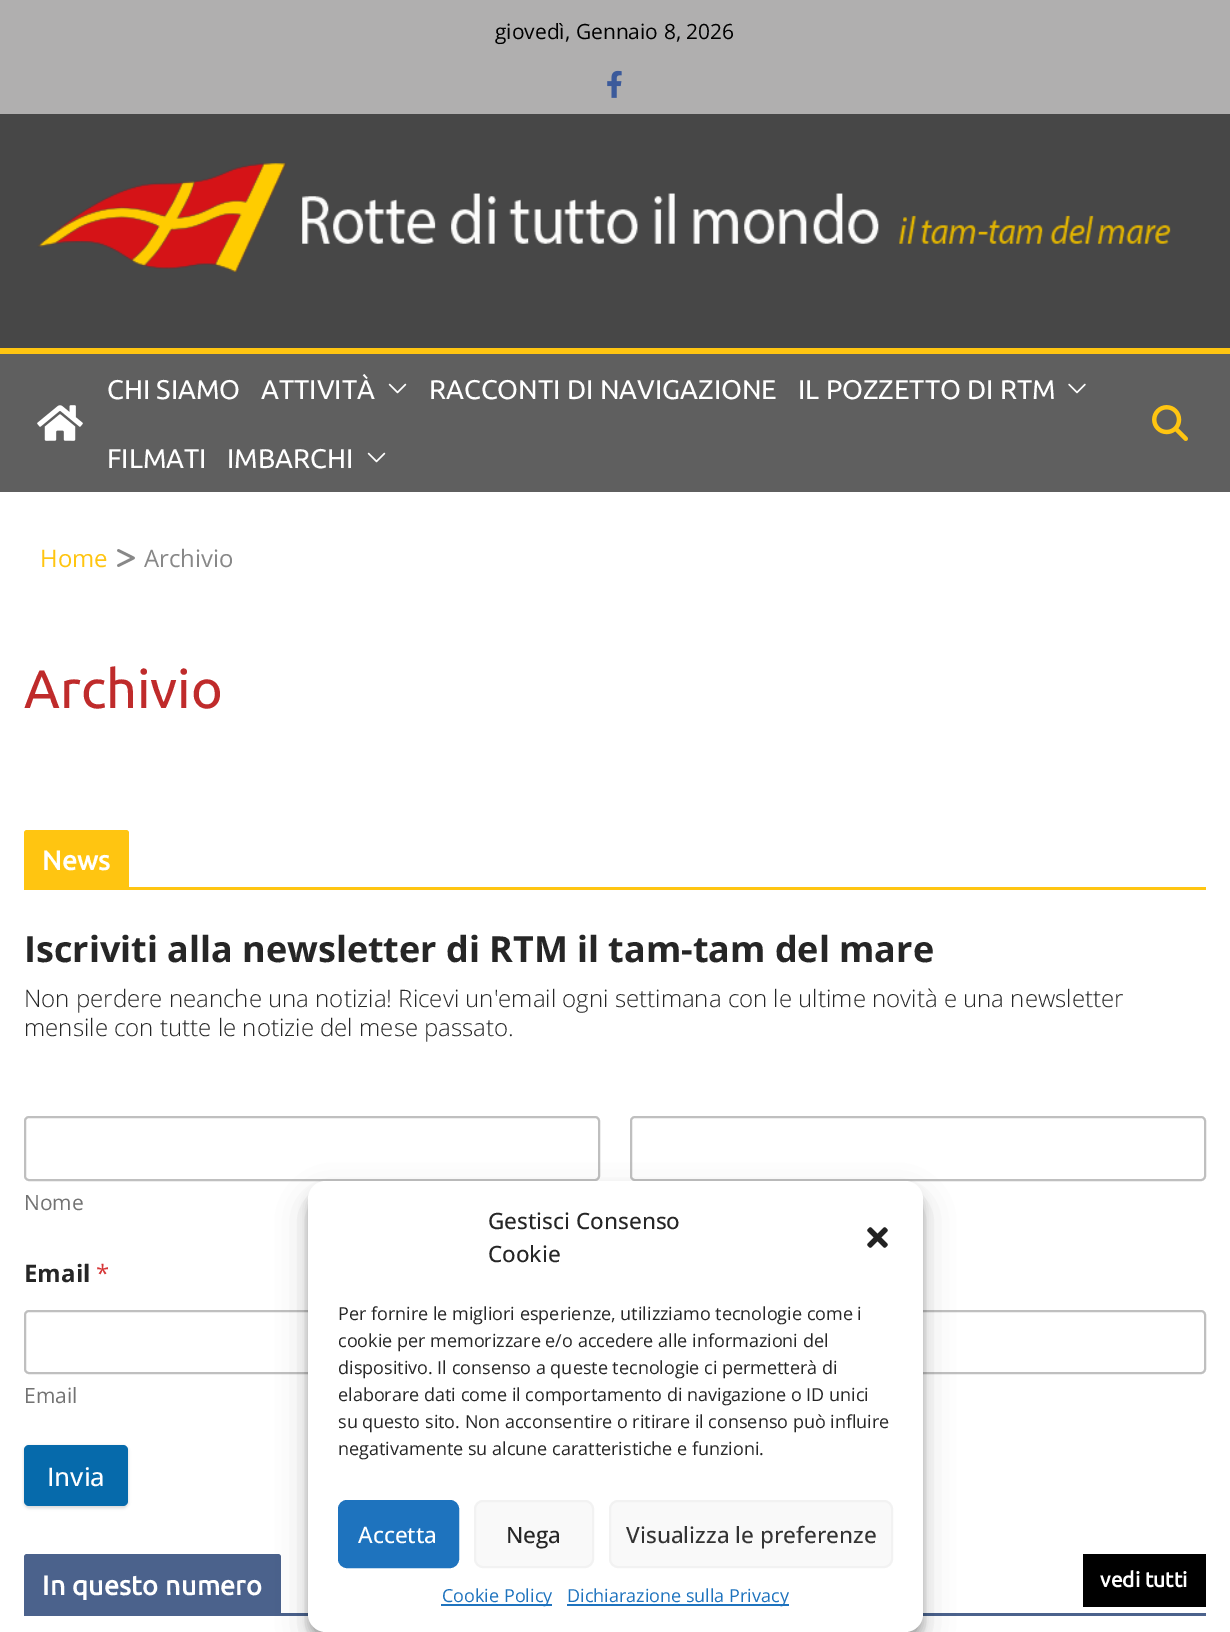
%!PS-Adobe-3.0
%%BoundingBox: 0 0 1230 1632
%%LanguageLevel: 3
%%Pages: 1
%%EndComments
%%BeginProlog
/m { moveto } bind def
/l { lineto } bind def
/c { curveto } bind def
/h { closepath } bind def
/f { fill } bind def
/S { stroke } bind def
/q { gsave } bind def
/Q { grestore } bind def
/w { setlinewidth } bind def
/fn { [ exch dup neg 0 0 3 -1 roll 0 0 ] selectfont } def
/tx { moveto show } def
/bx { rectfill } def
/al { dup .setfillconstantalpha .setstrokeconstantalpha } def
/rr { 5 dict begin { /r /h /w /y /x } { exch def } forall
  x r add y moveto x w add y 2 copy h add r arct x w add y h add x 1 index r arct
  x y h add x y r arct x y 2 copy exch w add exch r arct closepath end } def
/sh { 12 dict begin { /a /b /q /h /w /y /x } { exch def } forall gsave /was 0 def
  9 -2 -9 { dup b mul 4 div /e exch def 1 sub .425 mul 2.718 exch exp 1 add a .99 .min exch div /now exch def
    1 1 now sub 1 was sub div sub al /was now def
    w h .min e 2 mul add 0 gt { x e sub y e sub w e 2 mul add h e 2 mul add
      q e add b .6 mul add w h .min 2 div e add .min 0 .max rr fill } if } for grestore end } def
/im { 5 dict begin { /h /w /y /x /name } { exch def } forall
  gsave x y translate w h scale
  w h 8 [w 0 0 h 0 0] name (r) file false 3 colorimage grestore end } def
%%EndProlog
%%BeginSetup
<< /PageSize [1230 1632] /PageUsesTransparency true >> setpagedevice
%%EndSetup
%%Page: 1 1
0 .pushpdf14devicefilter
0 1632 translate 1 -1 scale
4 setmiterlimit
0.278 setgray
0 0 1230 1632 bx
0.69 0.686 0.686 setrgbcolor
0 0 1230 114 bx
/OpenSans-Regular 21 fn
0 setgray
(giovedì, Gennaio 8, 2026) 495 39 tx
(image0.raw) 607 70 15 28 im
(image1.raw) 37 163 1134 110 im
0.373 setgray
0 354 1230 138 bx
1 0.773 0.067 setrgbcolor
0 348 1230 6 bx
(image2.raw) 37 405 46 36 im
/Ubuntu-Regular 27 fn
1 setgray
(CHI SIAMO) 107 399 tx
(ATTIVITÀ) 261 399 tx
(image3.raw) 388 383 19 11 im
(RACCONTI DI NAVIGAZIONE) 429 399 tx
(IL POZZETTO DI RTM) 798 399 tx
(image4.raw) 1068 383 18 11 im
(FILMATI) 107 468 tx
(IMBARCHI) 227 468 tx
(image3.raw) 367 452 19 11 im
(image5.raw) 1152 405 36 36 im
0 492 1230 1140 bx
/OpenSans-Regular 24 fn
1 0.773 0.067 setrgbcolor
(Home) 40 567 tx
(image6.raw) 117 549 18 18 im
0.533 setgray
(Archivio) 144 567 tx
/Ubuntu-Regular 54 fn
0.749 0.169 0.169 setrgbcolor
(Archivio) 24 708 tx
1 0.773 0.067 setrgbcolor
24 887 1182 3 bx
27 830 m 126 830 l 127.5 830 129 831.5 129 833 c 129 887 l 24 887 l 24 833 l 24 831.5 25.5 830 27 830 c h f
/Ubuntu-Bold 27 fn
1 setgray
42 870 m 0.25 0 (News) ashow
/OpenSans-Bold 36 fn
0.149 setgray
(Iscriviti alla newsletter di RTM il tam-tam del mare) 24 962 tx
/OpenSans-Light 24 fn
(Non perdere neanche una notizia! Ricevi un'email ogni settimana con le ultime novità e una newsletter) 24 1007 tx
(mensile con tutte le notizie del mese passato.) 24 1036 tx
0.749 setgray
2 w
631 1117 574 63 4 rr S
25 1117 574 63 4 rr S
/OpenSans-Regular 21 fn
0.451 setgray
(Nome) 24 1210 tx
/OpenSans-Bold 24 fn
0.149 setgray
(Email) 24 1282 tx
/OpenSans-Regular 24 fn
0.839 0.212 0.216 setrgbcolor
(*) 96 1282 tx
0.749 setgray
631 1311 574 62 4 rr S
25 1311 574 62 4 rr S
/OpenSans-Regular 21 fn
0.451 setgray
(Email) 24 1403 tx
0 setgray
24 1446 104 62 5 1.5 0.15 sh
0.024 0.416 0.671 setrgbcolor
24 1445 104 61 5 rr f
/OpenSans-Medium 25.5 fn
1 setgray
(Invia) 47 1486 tx
0.294 0.384 0.549 setrgbcolor
24 1613 1182 3 bx
27 1554 m 278 1554 l 279.5 1554 281 1555.5 281 1557 c 281 1613 l 24 1613 l 24 1557 l 24 1555.5 25.5 1554 27 1554 c h f
/Ubuntu-Bold 27 fn
1 setgray
42 1595 m 0.25 0 (In questo numero) ashow
0 setgray
1083 1554 123 53 bx
/Ubuntu-Bold 21 fn
1 setgray
(vedi tutti) 1100 1587 tx
0 setgray
308 1190 615 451 18 4.5 0.23 sh
308 1196 615 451 18 15 0.19 sh
1 setgray
308 1181 615 451 18 rr f
/OpenSans-Medium 22.5 fn
0.149 setgray
(Gestisci Consenso) 488 1229 tx
(Cookie) 488 1262 tx
(image7.raw) 867 1227 21 21 im
/OpenSans-Regular 18 fn
(Per fornire le migliori esperienze, utilizziamo tecnologie come i) 338 1320 tx
(cookie per memorizzare e/o accedere alle informazioni del) 338 1347 tx
(dispositivo. Il consenso a queste tecnologie ci permetterà di) 338 1374 tx
(elaborare dati come il comportamento di navigazione o ID unici) 338 1401 tx
(su questo sito. Non acconsentire o ritirare il consenso può influire) 338 1428 tx
(negativamente su alcune caratteristiche e funzioni.) 338 1455 tx
0.118 0.451 0.745 setrgbcolor
339 1501 119 66 8 rr q f Q
S
/OpenSans-Medium 22.5 fn
1 setgray
(Accetta) 358 1543 tx
0.976 setgray
475 1501 118 66 8 rr q f Q
0.949 setgray
S
0.149 setgray
(Nega) 506 1543 tx
0.976 setgray
610 1501 282 66 8 rr q f Q
0.949 setgray
S
0.2 setgray
(Visualizza le preferenze) 626 1543 tx
0.118 0.451 0.745 setrgbcolor
441 1604 111 2 bx
/OpenSans-Regular 18 fn
(Cookie Policy) 442 1602 tx
567 1604 222 2 bx
(Dichiarazione sulla Privacy) 567 1602 tx
.poppdf14devicefilter showpage
%%EOF
